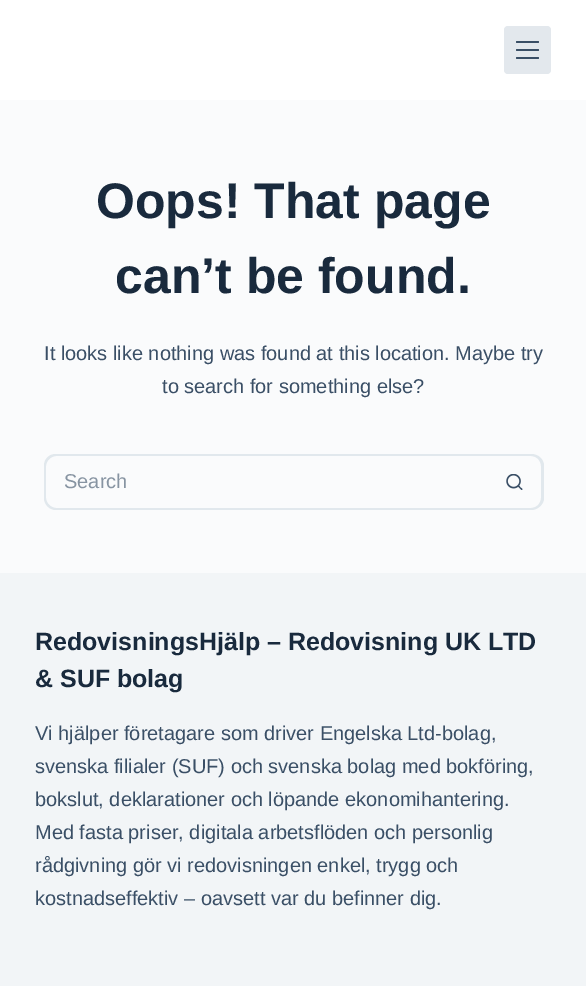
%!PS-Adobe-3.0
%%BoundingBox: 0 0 586 986
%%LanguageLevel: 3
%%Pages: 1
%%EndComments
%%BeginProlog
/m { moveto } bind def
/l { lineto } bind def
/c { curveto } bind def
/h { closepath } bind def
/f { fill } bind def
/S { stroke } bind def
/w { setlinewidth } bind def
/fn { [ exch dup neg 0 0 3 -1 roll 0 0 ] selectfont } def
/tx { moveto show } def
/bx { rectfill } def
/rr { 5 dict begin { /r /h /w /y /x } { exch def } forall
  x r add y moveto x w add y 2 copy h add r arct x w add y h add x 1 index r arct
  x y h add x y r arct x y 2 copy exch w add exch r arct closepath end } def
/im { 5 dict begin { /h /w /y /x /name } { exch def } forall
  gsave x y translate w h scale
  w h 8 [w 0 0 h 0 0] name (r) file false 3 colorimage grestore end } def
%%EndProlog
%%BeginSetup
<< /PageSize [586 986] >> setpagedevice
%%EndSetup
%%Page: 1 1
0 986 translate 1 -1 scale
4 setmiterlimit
0.98 0.984 0.988 setrgbcolor
0 0 586 986 bx
1 setgray
0 0 586 100 bx
0.89 0.91 0.929 setrgbcolor
504 26 47 48 4 rr f
0.227 0.31 0.4 setrgbcolor
516 41 23 2 1 rr f
516 49 23 2 1 rr f
516 57 23 2 1 rr f
/LiberationSans-Bold 50 fn
0.098 0.165 0.239 setrgbcolor
(Oops! That page) 96 218 tx
(can’t be found.) 115 293 tx
/LiberationSans-Regular 20 fn
0.227 0.31 0.4 setrgbcolor
(It looks like nothing was found at this location. Maybe try) 44 360 tx
(to search for something else?) 162 393 tx
0.882 0.91 0.929 setrgbcolor
56 454 m 488 454 l 488 510 l 56 510 l 49 510 44 504 44 498 c 44 466 l 44 459 49 454 56 454 c h 56 456 m 488 456 l 488 508 l 56 508 l 51 508 46 503 46 498 c 46 466 l 46 461 51 456 56 456 c h eofill
0.529 0.58 0.635 setrgbcolor
(Search) 64 488 tx
0.882 0.91 0.929 setrgbcolor
488 454 m 531 454 l 538 454 544 459 544 466 c 544 498 l 544 504 538 510 531 510 c 488 510 l h 488 456 m 531 456 l 537 456 541 461 541 466 c 541 498 l 541 503 537 508 531 508 c 488 508 l h eofill
(image0.raw) 506 474 17 16 im
0.98 0.984 0.988 setrgbcolor
1.9 w
1 setlinecap
519 473.5 m 523 476 524.5 482 521.5 486.5 c S
0.949 0.961 0.969 setrgbcolor
0 573 586 413 bx
/LiberationSans-Bold 25 fn
0.098 0.165 0.239 setrgbcolor
(RedovisningsHjälp – Redovisning UK LTD) 35 650 tx
(& SUF bolag) 35 687 tx
/LiberationSans-Regular 20 fn
0.227 0.31 0.4 setrgbcolor
(Vi hjälper företagare som driver Engelska Ltd-bolag,) 35 740 tx
(svenska filialer \(SUF\) och svenska bolag med bokföring,) 35 773 tx
(bokslut, deklarationer och löpande ekonomihantering.) 35 806 tx
(Med fasta priser, digitala arbetsflöden och personlig) 35 839 tx
(rådgivning gör vi redovisningen enkel, trygg och) 35 872 tx
(kostnadseffektiv – oavsett var du befinner dig.) 35 905 tx
showpage
%%EOF
